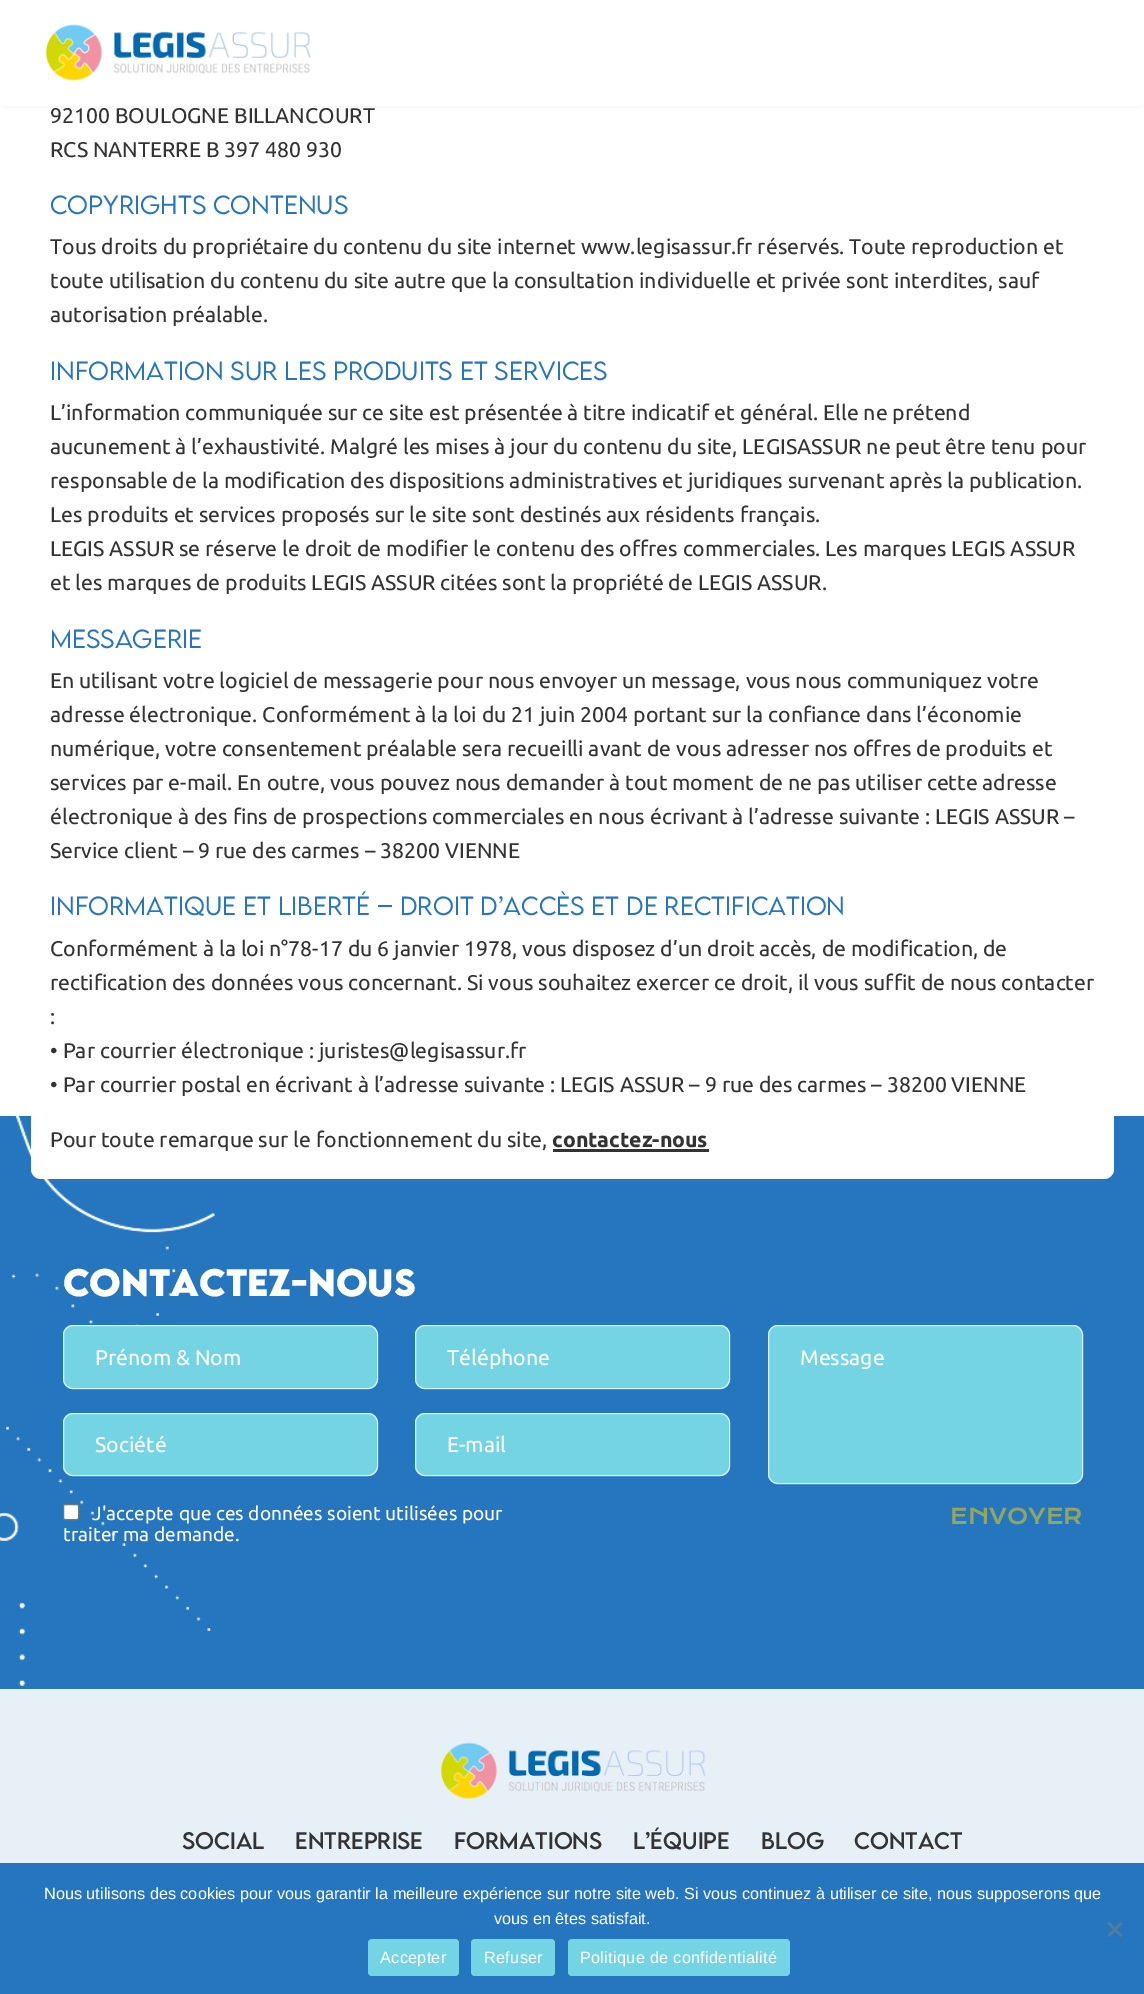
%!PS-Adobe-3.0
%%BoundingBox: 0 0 1144 1994
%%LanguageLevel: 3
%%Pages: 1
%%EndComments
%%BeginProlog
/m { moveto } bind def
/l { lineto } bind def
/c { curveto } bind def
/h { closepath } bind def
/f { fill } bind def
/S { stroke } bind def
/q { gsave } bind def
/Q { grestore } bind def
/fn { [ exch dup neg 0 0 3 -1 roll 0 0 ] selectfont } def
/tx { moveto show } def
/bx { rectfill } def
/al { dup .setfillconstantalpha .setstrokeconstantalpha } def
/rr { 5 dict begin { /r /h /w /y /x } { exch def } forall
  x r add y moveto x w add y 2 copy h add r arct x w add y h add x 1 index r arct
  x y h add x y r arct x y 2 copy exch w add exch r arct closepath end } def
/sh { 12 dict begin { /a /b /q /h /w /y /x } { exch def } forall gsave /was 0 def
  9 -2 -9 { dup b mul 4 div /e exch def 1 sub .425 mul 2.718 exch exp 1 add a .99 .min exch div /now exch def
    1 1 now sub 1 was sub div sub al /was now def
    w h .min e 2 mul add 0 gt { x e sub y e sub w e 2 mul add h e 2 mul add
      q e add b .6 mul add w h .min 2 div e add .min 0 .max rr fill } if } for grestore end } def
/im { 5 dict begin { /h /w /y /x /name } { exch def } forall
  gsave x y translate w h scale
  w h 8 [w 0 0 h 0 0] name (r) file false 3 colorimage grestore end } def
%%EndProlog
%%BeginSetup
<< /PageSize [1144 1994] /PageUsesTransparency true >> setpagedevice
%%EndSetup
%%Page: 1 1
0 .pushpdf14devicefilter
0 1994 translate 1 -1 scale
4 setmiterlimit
1 setgray
0 0 1144 1994 bx
0.149 0.463 0.749 setrgbcolor
0 1116 1144 573 bx
(image1.raw) 0 1116 215 570 im
1 setgray
31 -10 1083 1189 10 rr f
0 setgray
0 1 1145 107 6 2 0.04 sh
1 setgray
0 0 m 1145 0 l 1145 100 l 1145 103.5 1142.5 106 1139 106 c 6 106 l 2.5 106 0 103.5 0 100 c h f
(image0.raw) 46 24 265 57 im
/Ubuntu-Regular 21.25 fn
0.2 setgray
(92100 BOULOGNE BILLANCOURT) 50 123 tx
(RCS NANTERRE B 397 480 930) 50 157 tx
/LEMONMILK-Light 23.4 fn
0.149 0.463 0.749 setrgbcolor
(Copyrights contenus) 50 214 tx
/Ubuntu-Regular 21.25 fn
0.2 setgray
(Tous droits du propriétaire du contenu du site internet www.legisassur.fr réservés. Toute reproduction et) 50 254 tx
(toute utilisation du contenu du site autre que la consultation individuelle et privée sont interdites, sauf) 50 288 tx
(autorisation préalable.) 50 322 tx
/LEMONMILK-Light 23.4 fn
0.149 0.463 0.749 setrgbcolor
(Information sur les produits et services) 50 380 tx
/Ubuntu-Regular 21.25 fn
0.2 setgray
(L’information communiquée sur ce site est présentée à titre indicatif et général. Elle ne prétend) 50 420 tx
(aucunement à l’exhaustivité. Malgré les mises à jour du contenu du site, LEGISASSUR ne peut être tenu pour) 50 454 tx
(responsable de la modification des dispositions administratives et juridiques survenant après la publication.) 50 488 tx
(Les produits et services proposés sur le site sont destinés aux résidents français.) 50 522 tx
(LEGIS ASSUR se réserve le droit de modifier le contenu des offres commerciales. Les marques LEGIS ASSUR) 50 556 tx
(et les marques de produits LEGIS ASSUR citées sont la propriété de LEGIS ASSUR.) 50 590 tx
/LEMONMILK-Light 23.4 fn
0.149 0.463 0.749 setrgbcolor
(Messagerie) 50 648 tx
/Ubuntu-Regular 21.25 fn
0.2 setgray
(En utilisant votre logiciel de messagerie pour nous envoyer un message, vous nous communiquez votre) 50 688 tx
(adresse électronique. Conformément à la loi du 21 juin 2004 portant sur la confiance dans l’économie) 50 722 tx
(numérique, votre consentement préalable sera recueilli avant de vous adresser nos offres de produits et) 50 756 tx
(services par e-mail. En outre, vous pouvez nous demander à tout moment de ne pas utiliser cette adresse) 50 790 tx
(électronique à des fins de prospections commerciales en nous écrivant à l’adresse suivante : LEGIS ASSUR –) 50 824 tx
(Service client – 9 rue des carmes – 38200 VIENNE) 50 858 tx
/LEMONMILK-Light 23.4 fn
0.149 0.463 0.749 setrgbcolor
(Informatique et liberté – Droit d’accès et de rectification) 50 915 tx
/Ubuntu-Regular 21.25 fn
0.2 setgray
(Conformément à la loi n°78-17 du 6 janvier 1978, vous disposez d’un droit accès, de modification, de) 50 956 tx
(rectification des données vous concernant. Si vous souhaitez exercer ce droit, il vous suffit de nous contacter) 50 990 tx
(:) 50 1024 tx
(• Par courrier électronique : juristes@legisassur.fr) 50 1058 tx
(• Par courrier postal en écrivant à l’adresse suivante : LEGIS ASSUR – 9 rue des carmes – 38200 VIENNE) 50 1092 tx
(Pour toute remarque sur le fonctionnement du site,) 50 1147 tx
553 1149 156 3 bx
/Ubuntu-Bold 21.25 fn
(contactez-nous) 552 1147 tx
/LEMONMILK-Bold 34 fn
1 setgray
(Contactez-nous) 63 1296 tx
0.455 0.831 0.89 setrgbcolor
63 1325 315 64 10 rr f
0.7 al
1 setgray
63.5 1325.5 314 63 9.5 rr S
/Ubuntu-Regular 21.25 fn
1 al
(Prénom & Nom) 95 1365 tx
0.455 0.831 0.89 setrgbcolor
63 1413 315 63 10 rr f
0.7 al
1 setgray
63.5 1413.5 314 62 9.5 rr S
1 al
(Société) 95 1452 tx
0.455 0.831 0.89 setrgbcolor
415 1325 315 64 10 rr f
0.7 al
1 setgray
415.5 1325.5 314 63 9.5 rr S
1 al
(Téléphone) 447 1365 tx
0.455 0.831 0.89 setrgbcolor
415 1413 315 63 10 rr f
0.7 al
1 setgray
415.5 1413.5 314 62 9.5 rr S
1 al
(E-mail) 447 1452 tx
0.455 0.831 0.89 setrgbcolor
768 1325 315 159 10 rr f
0.7 al
1 setgray
768.5 1325.5 314 158 9.5 rr S
1 al
(Message) 800 1365 tx
63.5 1504.5 15 15 2 rr q f Q
0.463 setgray
S
/Ubuntu-Regular 19.1 fn
1 setgray
(J'accepte que ces données soient utilisées pour) 92 1520 tx
(traiter ma demande.) 63 1541 tx
/KronaOne-Regular 21.25 fn
0.576 0.651 0.376 setrgbcolor
(ENVOYER) 950 1524 tx
0.906 0.941 0.969 setrgbcolor
0 1689 1144 174 bx
(image2.raw) 441 1742 265 57 im
/LEMONMILK-Regular 21.25 fn
0.2 setgray
(SOCIAL) 182 1849 tx
(ENTREPRISE) 295 1849 tx
(FORMATIONS) 454 1849 tx
(L’ÉQUIPE) 633 1849 tx
(BLOG) 761 1849 tx
(CONTACT) 854 1849 tx
0.149 0.463 0.749 setrgbcolor
0 1863 1144 131 bx
/LiberationSans-Regular 16.25 fn
1 setgray
(Nous utilisons des cookies pour vous garantir la meilleure expérience sur notre site web. Si vous continuez à utiliser ce site, nous supposerons que) 44 1899 tx
(vous en êtes satisfait.) 494 1924 tx
0.325 0.482 0.627 setrgbcolor
1120.5 1922 m 1122.5 1923.5 l 1109.5 1937 l 1107.5 1935 l h f
1107.5 1923.5 m 1109.5 1922 l 1122.5 1935 l 1120.5 1937 l h f
0.455 0.831 0.89 setrgbcolor
368 1939 91 37 4 rr f
1 setgray
380 1963 m 0.3 0 (Accepter) ashow
0.455 0.831 0.89 setrgbcolor
471 1939 84 37 4 rr f
1 setgray
484 1963 m 0.3 0 (Refuser) ashow
0.455 0.831 0.89 setrgbcolor
568 1939 222 37 4 rr f
1 setgray
580 1963 m 0.3 0 (Politique de confidentialité) ashow
.poppdf14devicefilter showpage
%%EOF
